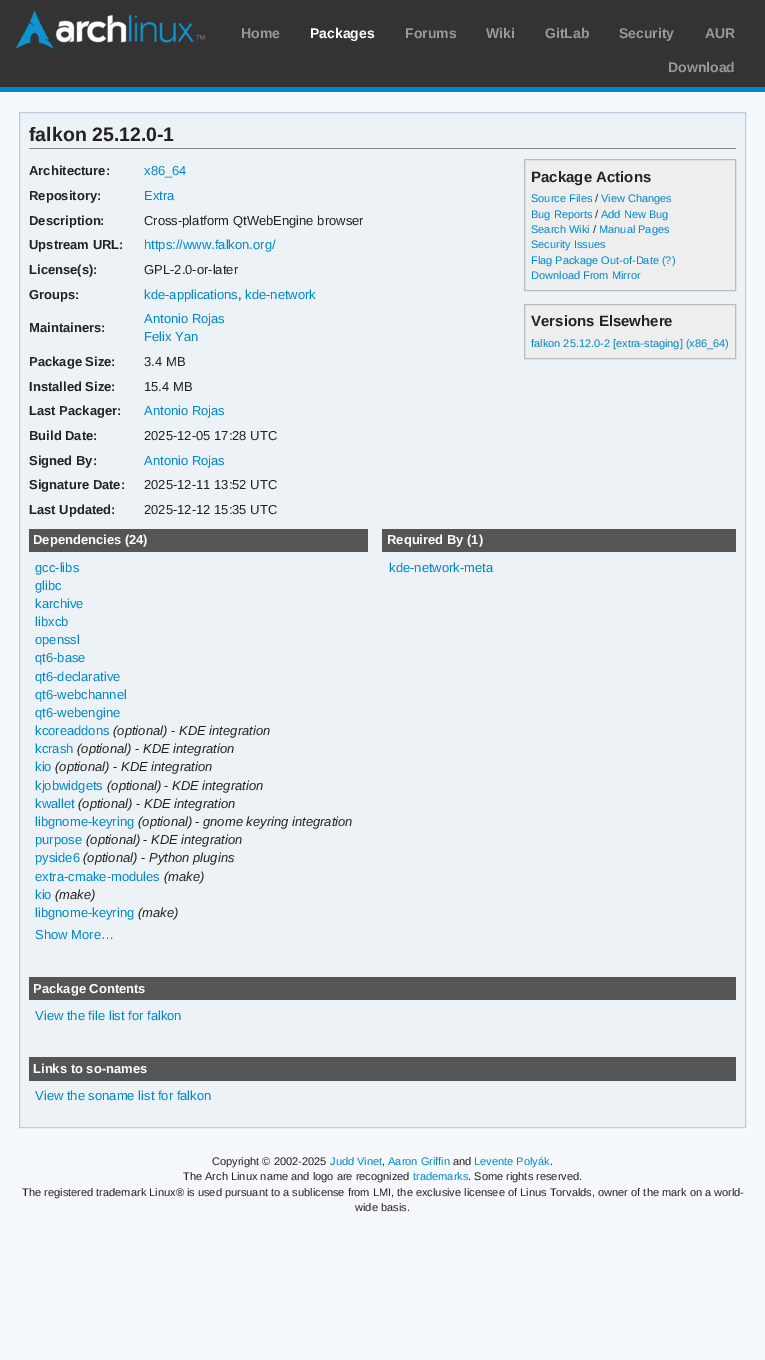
%!PS-Adobe-3.0
%%BoundingBox: 0 0 765 1360
%%LanguageLevel: 3
%%Pages: 1
%%EndComments
%%BeginProlog
/m { moveto } bind def
/l { lineto } bind def
/h { closepath } bind def
/f { fill } bind def
/S { stroke } bind def
/q { gsave } bind def
/Q { grestore } bind def
/fn { [ exch dup neg 0 0 3 -1 roll 0 0 ] selectfont } def
/tx { moveto show } def
/bx { rectfill } def
/im { 5 dict begin { /h /w /y /x /name } { exch def } forall
  gsave x y translate w h scale
  w h 8 [w 0 0 h 0 0] name (r) file false 3 colorimage grestore end } def
%%EndProlog
%%BeginSetup
<< /PageSize [765 1360] >> setpagedevice
%%EndSetup
%%Page: 1 1
0 1360 translate 1 -1 scale
4 setmiterlimit
0.965 0.976 0.988 setrgbcolor
0 0 765 1360 bx
0.2 setgray
0 0 765 87 bx
0 0.533 0.8 setrgbcolor
0 87 765 5 bx
(image0.raw) 15 10 190 39 im
/LiberationSans-Bold 14 fn
0.6 setgray
(Home) 241 38 tx
1 setgray
(Packages) 310 38 tx
0.6 setgray
(Forums) 405 38 tx
(Wiki) 486 38 tx
(GitLab) 545 38 tx
(Security) 619 38 tx
(AUR) 705 38 tx
(Download) 668 72 tx
0.925 0.949 0.961 setrgbcolor
19.5 112.5 m 745.5 112.5 l 745.5 1127.5 l 19.5 1127.5 l h q f Q
0.733 0.8 0.867 setrgbcolor
S
0.533 setgray
29 148 707 1 bx
/LiberationSans-Bold 19.5 fn
0.133 setgray
(falkon 25.12.0-1) 29 141 tx
/LiberationSans-Bold 13 fn
(Architecture:) 29 175 tx
/LiberationSans-Regular 13 fn
0 0.533 0.8 setrgbcolor
(x86_64) 144 175 tx
/LiberationSans-Bold 13 fn
0.133 setgray
(Repository:) 29 200 tx
/LiberationSans-Regular 13 fn
0 0.533 0.8 setrgbcolor
(Extra) 144 200 tx
/LiberationSans-Bold 13 fn
0.133 setgray
(Description:) 29 225 tx
/LiberationSans-Regular 13 fn
(Cross-platform QtWebEngine browser) 144 225 tx
/LiberationSans-Bold 13 fn
(Upstream URL:) 29 249 tx
/LiberationSans-Regular 13 fn
0 0.533 0.8 setrgbcolor
(https://www.falkon.org/) 144 249 tx
/LiberationSans-Bold 13 fn
0.133 setgray
(License\(s\):) 29 274 tx
/LiberationSans-Regular 13 fn
(GPL-2.0-or-later) 144 274 tx
/LiberationSans-Bold 13 fn
(Groups:) 29 299 tx
/LiberationSans-Regular 13 fn
0 0.533 0.8 setrgbcolor
(kde-applications) 144 299 tx
0.133 setgray
(,) 238 299 tx
0 0.533 0.8 setrgbcolor
(kde-network) 245 299 tx
/LiberationSans-Bold 13 fn
0.133 setgray
(Maintainers:) 29 332 tx
/LiberationSans-Regular 13 fn
0 0.533 0.8 setrgbcolor
(Antonio Rojas) 144 323 tx
(Felix Yan) 144 341 tx
/LiberationSans-Bold 13 fn
0.133 setgray
(Package Size:) 29 366 tx
/LiberationSans-Regular 13 fn
(3.4 MB) 144 366 tx
/LiberationSans-Bold 13 fn
(Installed Size:) 29 391 tx
/LiberationSans-Regular 13 fn
(15.4 MB) 144 391 tx
/LiberationSans-Bold 13 fn
(Last Packager:) 29 415 tx
/LiberationSans-Regular 13 fn
0 0.533 0.8 setrgbcolor
(Antonio Rojas) 144 415 tx
/LiberationSans-Bold 13 fn
0.133 setgray
(Build Date:) 29 440 tx
/LiberationSans-Regular 13 fn
(2025-12-05 17:28 UTC) 144 440 tx
/LiberationSans-Bold 13 fn
(Signed By:) 29 465 tx
/LiberationSans-Regular 13 fn
0 0.533 0.8 setrgbcolor
(Antonio Rojas) 144 465 tx
/LiberationSans-Bold 13 fn
0.133 setgray
(Signature Date:) 29 489 tx
/LiberationSans-Regular 13 fn
(2025-12-11 13:52 UTC) 144 489 tx
/LiberationSans-Bold 13 fn
(Last Updated:) 29 514 tx
/LiberationSans-Regular 13 fn
(2025-12-12 15:35 UTC) 144 514 tx
0.933 setgray
524.5 159.5 m 735.5 159.5 l 735.5 290.5 l 524.5 290.5 l h q f Q
0.733 setgray
S
/LiberationSans-Bold 15 fn
0.133 setgray
(Package Actions) 531 182 tx
/LiberationSans-Regular 11 fn
0 0.533 0.8 setrgbcolor
(Source Files) 531 202 tx
0.133 setgray
(/) 595 202 tx
0 0.533 0.8 setrgbcolor
(View Changes) 601 202 tx
(Bug Reports) 531 218 tx
0.133 setgray
(/) 595 218 tx
0 0.533 0.8 setrgbcolor
(Add New Bug) 601 218 tx
(Search Wiki) 531 233 tx
0.133 setgray
(/) 593 233 tx
0 0.533 0.8 setrgbcolor
(Manual Pages) 599 233 tx
(Security Issues) 531 248 tx
(Flag Package Out-of-Date \(?\)) 531 264 tx
(Download From Mirror) 531 279 tx
0.933 setgray
524.5 304.5 m 735.5 304.5 l 735.5 358.5 l 524.5 358.5 l h q f Q
0.733 setgray
S
/LiberationSans-Bold 15 fn
0.133 setgray
(Versions Elsewhere) 531 326 tx
/LiberationSans-Regular 11 fn
0 0.533 0.8 setrgbcolor
(falkon 25.12.0-2 [extra-staging] \(x86_64\)) 531 347 tx
0.333 setgray
29 529 339 23 bx
/LiberationSans-Bold 13 fn
1 setgray
(Dependencies \(24\)) 33 544 tx
/LiberationSans-Regular 13 fn
0 0.533 0.8 setrgbcolor
(gcc-libs) 35 572 tx
(glibc) 35 590 tx
(karchive) 35 608 tx
(libxcb) 35 626 tx
(openssl) 35 644 tx
(qt6-base) 35 662 tx
(qt6-declarative) 35 681 tx
(qt6-webchannel) 35 699 tx
(qt6-webengine) 35 717 tx
(kcoreaddons) 35 735 tx
/LiberationSans-Italic 13 fn
0.133 setgray
(\(optional\)) 113 735 tx
/LiberationSans-Regular 13 fn
(-) 171 735 tx
/LiberationSans-Italic 13 fn
(KDE integration) 179 735 tx
/LiberationSans-Regular 13 fn
0 0.533 0.8 setrgbcolor
(kcrash) 35 753 tx
/LiberationSans-Italic 13 fn
0.133 setgray
(\(optional\)) 77 753 tx
/LiberationSans-Regular 13 fn
(-) 135 753 tx
/LiberationSans-Italic 13 fn
(KDE integration) 143 753 tx
/LiberationSans-Regular 13 fn
0 0.533 0.8 setrgbcolor
(kio) 35 771 tx
/LiberationSans-Italic 13 fn
0.133 setgray
(\(optional\)) 55 771 tx
/LiberationSans-Regular 13 fn
(-) 113 771 tx
/LiberationSans-Italic 13 fn
(KDE integration) 121 771 tx
/LiberationSans-Regular 13 fn
0 0.533 0.8 setrgbcolor
(kjobwidgets) 35 790 tx
/LiberationSans-Italic 13 fn
0.133 setgray
(\(optional\)) 107 790 tx
/LiberationSans-Regular 13 fn
(-) 164 790 tx
/LiberationSans-Italic 13 fn
(KDE integration) 172 790 tx
/LiberationSans-Regular 13 fn
0 0.533 0.8 setrgbcolor
(kwallet) 35 808 tx
/LiberationSans-Italic 13 fn
0.133 setgray
(\(optional\)) 78 808 tx
/LiberationSans-Regular 13 fn
(-) 136 808 tx
/LiberationSans-Italic 13 fn
(KDE integration) 144 808 tx
/LiberationSans-Regular 13 fn
0 0.533 0.8 setrgbcolor
(libgnome-keyring) 35 826 tx
/LiberationSans-Italic 13 fn
0.133 setgray
(\(optional\)) 138 826 tx
/LiberationSans-Regular 13 fn
(-) 195 826 tx
/LiberationSans-Italic 13 fn
(gnome keyring integration) 203 826 tx
/LiberationSans-Regular 13 fn
0 0.533 0.8 setrgbcolor
(purpose) 35 844 tx
/LiberationSans-Italic 13 fn
0.133 setgray
(\(optional\)) 86 844 tx
/LiberationSans-Regular 13 fn
(-) 143 844 tx
/LiberationSans-Italic 13 fn
(KDE integration) 151 844 tx
/LiberationSans-Regular 13 fn
0 0.533 0.8 setrgbcolor
(pyside6) 35 862 tx
/LiberationSans-Italic 13 fn
0.133 setgray
(\(optional\)) 83 862 tx
/LiberationSans-Regular 13 fn
(-) 141 862 tx
/LiberationSans-Italic 13 fn
(Python plugins) 149 862 tx
/LiberationSans-Regular 13 fn
0 0.533 0.8 setrgbcolor
(extra-cmake-modules) 35 881 tx
/LiberationSans-Italic 13 fn
0.133 setgray
(\(make\)) 164 881 tx
/LiberationSans-Regular 13 fn
0 0.533 0.8 setrgbcolor
(kio) 35 899 tx
/LiberationSans-Italic 13 fn
0.133 setgray
(\(make\)) 55 899 tx
/LiberationSans-Regular 13 fn
0 0.533 0.8 setrgbcolor
(libgnome-keyring) 35 917 tx
/LiberationSans-Italic 13 fn
0.133 setgray
(\(make\)) 138 917 tx
/LiberationSans-Regular 13 fn
0 0.533 0.8 setrgbcolor
(Show More…) 35 939 tx
0.333 setgray
382 529 354 23 bx
/LiberationSans-Bold 13 fn
1 setgray
(Required By \(1\)) 387 544 tx
/LiberationSans-Regular 13 fn
0 0.533 0.8 setrgbcolor
(kde-network-meta) 389 572 tx
0.333 setgray
29 977 707 23 bx
/LiberationSans-Bold 13 fn
1 setgray
(Package Contents) 33 993 tx
/LiberationSans-Regular 13 fn
0 0.533 0.8 setrgbcolor
(View the file list for falkon) 35 1020 tx
0.333 setgray
29 1057 707 24 bx
/LiberationSans-Bold 13 fn
1 setgray
(Links to so-names) 33 1073 tx
/LiberationSans-Regular 13 fn
0 0.533 0.8 setrgbcolor
(View the soname list for falkon) 35 1100 tx
/LiberationSans-Regular 11.05 fn
0.133 setgray
(Copyright © 2002-2025) 212 1165 tx
0 0.533 0.8 setrgbcolor
(Judd Vinet) 330 1165 tx
0.133 setgray
(,) 382 1165 tx
0 0.533 0.8 setrgbcolor
(Aaron Griffin) 388 1165 tx
0.133 setgray
(and) 453 1165 tx
0 0.533 0.8 setrgbcolor
(Levente Polyák) 474 1165 tx
0.133 setgray
(.) 550 1165 tx
(The Arch Linux name and logo are recognized) 183 1180 tx
0 0.533 0.8 setrgbcolor
(trademarks) 413 1180 tx
0.133 setgray
(. Some rights reserved.) 468 1180 tx
(The registered trademark Linux® is used pursuant to a sublicense from LMI, the exclusive licensee of Linus Torvalds, owner of the mark on a world-) 22 1196 tx
(wide basis.) 355 1211 tx
showpage
%%EOF
